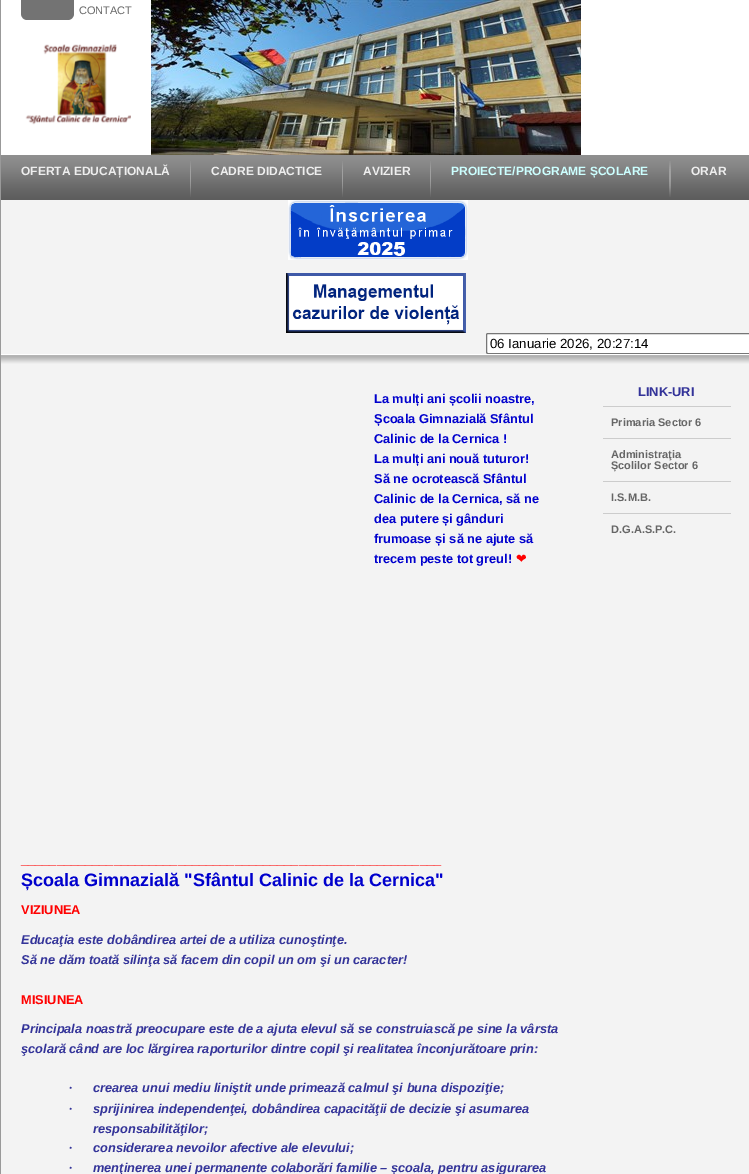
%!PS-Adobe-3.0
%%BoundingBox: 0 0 749 1174
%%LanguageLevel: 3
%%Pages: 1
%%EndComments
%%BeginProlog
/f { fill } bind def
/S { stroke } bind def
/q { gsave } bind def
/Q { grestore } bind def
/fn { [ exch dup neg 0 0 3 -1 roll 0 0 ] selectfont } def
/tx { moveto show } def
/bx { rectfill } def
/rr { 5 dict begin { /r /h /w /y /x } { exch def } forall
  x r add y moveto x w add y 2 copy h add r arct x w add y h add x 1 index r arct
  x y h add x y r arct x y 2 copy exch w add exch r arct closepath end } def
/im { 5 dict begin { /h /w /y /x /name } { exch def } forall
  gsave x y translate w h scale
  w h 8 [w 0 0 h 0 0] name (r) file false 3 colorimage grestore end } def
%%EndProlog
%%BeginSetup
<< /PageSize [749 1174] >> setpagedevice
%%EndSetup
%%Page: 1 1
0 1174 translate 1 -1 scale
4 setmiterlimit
0.953 setgray
0 0 749 1174 bx
0.6 setgray
0 0 1 1174 bx
1 setgray
1 0 748 155 bx
(image0.raw) 21 0 53 20 im
/LiberationSans-Regular 11 fn
0.4 setgray
(CONTACT) 79 14 tx
(image1.raw) 151 0 430 155 im
(image2.raw) 25 44 106 81 im
(image3.raw) 1 155 748 45 im
/LiberationSans-Bold 12 fn
0.933 setgray
(OFERTA EDUCAȚIONALĂ) 21 175 tx
(image4.raw) 190 161 1 36 im
(CADRE DIDACTICE) 211 175 tx
(image4.raw) 342 161 1 36 im
(AVIZIER) 363 175 tx
(image4.raw) 430 161 1 36 im
0.8 1 1 setrgbcolor
(PROIECTE/PROGRAME ȘCOLARE) 451 175 tx
(image4.raw) 669 161 1 36 im
(image4.raw) 670 161 1 36 im
0.933 setgray
(ORAR) 691 175 tx
(image5.raw) 288 200 180 60 im
(image6.raw) 286 273 180 60 im
1 setgray
486.5 333.5 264 20 1.5 rr q f Q
0.463 setgray
S
/LiberationSans-Regular 13.25 fn
0 setgray
(06 Ianuarie 2026, 20:27:14) 490 348 tx
(image7.raw) 1 354 748 10 im
/LiberationSans-Bold 12.8 fn
0 0 0.804 setrgbcolor
(La mulți ani școlii noastre,) 374 403 tx
(Școala Gimnazială Sfântul) 374 423 tx
(Calinic de la Cernica !) 374 443 tx
(La mulți ani nouă tuturor!) 374 463 tx
(Să ne ocrotească Sfântul) 374 483 tx
(Calinic de la Cernica, să ne) 374 503 tx
(dea putere și gânduri) 374 523 tx
(frumoase și să ne ajute să) 374 543 tx
(trecem peste tot greul!) 374 563 tx
/DejaVuSans-Regular 12.8 fn
1 0 0 setrgbcolor
(❤) 516 563 tx
/LiberationSans-Bold 12.8 fn
(___________________________________________________________) 21 864 tx
/LiberationSans-Bold 18 fn
0 0 0.804 setrgbcolor
(Școala Gimnazială "Sfântul Calinic de la Cernica") 21 886 tx
/LiberationSans-Bold 12.8 fn
1 0 0 setrgbcolor
(VIZIUNEA) 21 914 tx
/LiberationSans-BoldItalic 12.8 fn
0.2 0.2 0.6 setrgbcolor
(Educaţia este dobândirea artei de a utiliza cunoştinţe.) 21 944 tx
(Să ne dăm toată silinţa să facem din copil un om şi un caracter!) 21 964 tx
/LiberationSans-Bold 12.8 fn
1 0 0 setrgbcolor
(MISIUNEA) 21 1004 tx
/LiberationSans-BoldItalic 12.8 fn
0.2 0.2 0.6 setrgbcolor
(Principala noastră preocupare este de a ajuta elevul să se construiască pe sine la vârsta) 21 1033 tx
(şcolară când are loc lărgirea raporturilor dintre copil şi realitatea înconjurătoare prin:) 21 1053 tx
/LiberationSerif-BoldItalic 12.8 fn
(·) 69 1092 tx
/LiberationSans-BoldItalic 12.8 fn
(crearea unui mediu liniştit unde primează calmul şi buna dispoziţie;) 93 1092 tx
/LiberationSerif-BoldItalic 12.8 fn
(·) 69 1113 tx
/LiberationSans-BoldItalic 12.8 fn
(sprijinirea independenţei, dobândirea capacităţii de decizie şi asumarea) 93 1113 tx
(responsabilităţilor;) 93 1133 tx
/LiberationSerif-BoldItalic 12.8 fn
(·) 69 1152 tx
/LiberationSans-BoldItalic 12.8 fn
(considerarea nevoilor afective ale elevului;) 93 1152 tx
/LiberationSerif-BoldItalic 12.8 fn
(·) 69 1172 tx
/LiberationSans-BoldItalic 12.8 fn
(menţinerea unei permanente colaborări familie – școala, pentru asigurarea) 93 1172 tx
/LiberationSans-Bold 12.8 fn
(LINK-URI) 638 396 tx
0.8 setgray
603 406 128 1 bx
/LiberationSans-Bold 11 fn
0.4 setgray
(Primaria Sector 6) 611 426 tx
0.8 setgray
603 438 128 1 bx
0.4 setgray
(Administraţia) 611 458 tx
(Școlilor Sector 6) 611 469 tx
0.8 setgray
603 481 128 1 bx
0.4 setgray
(I.S.M.B.) 611 501 tx
0.8 setgray
603 513 128 1 bx
0.4 setgray
(D.G.A.S.P.C.) 611 533 tx
showpage
%%EOF
